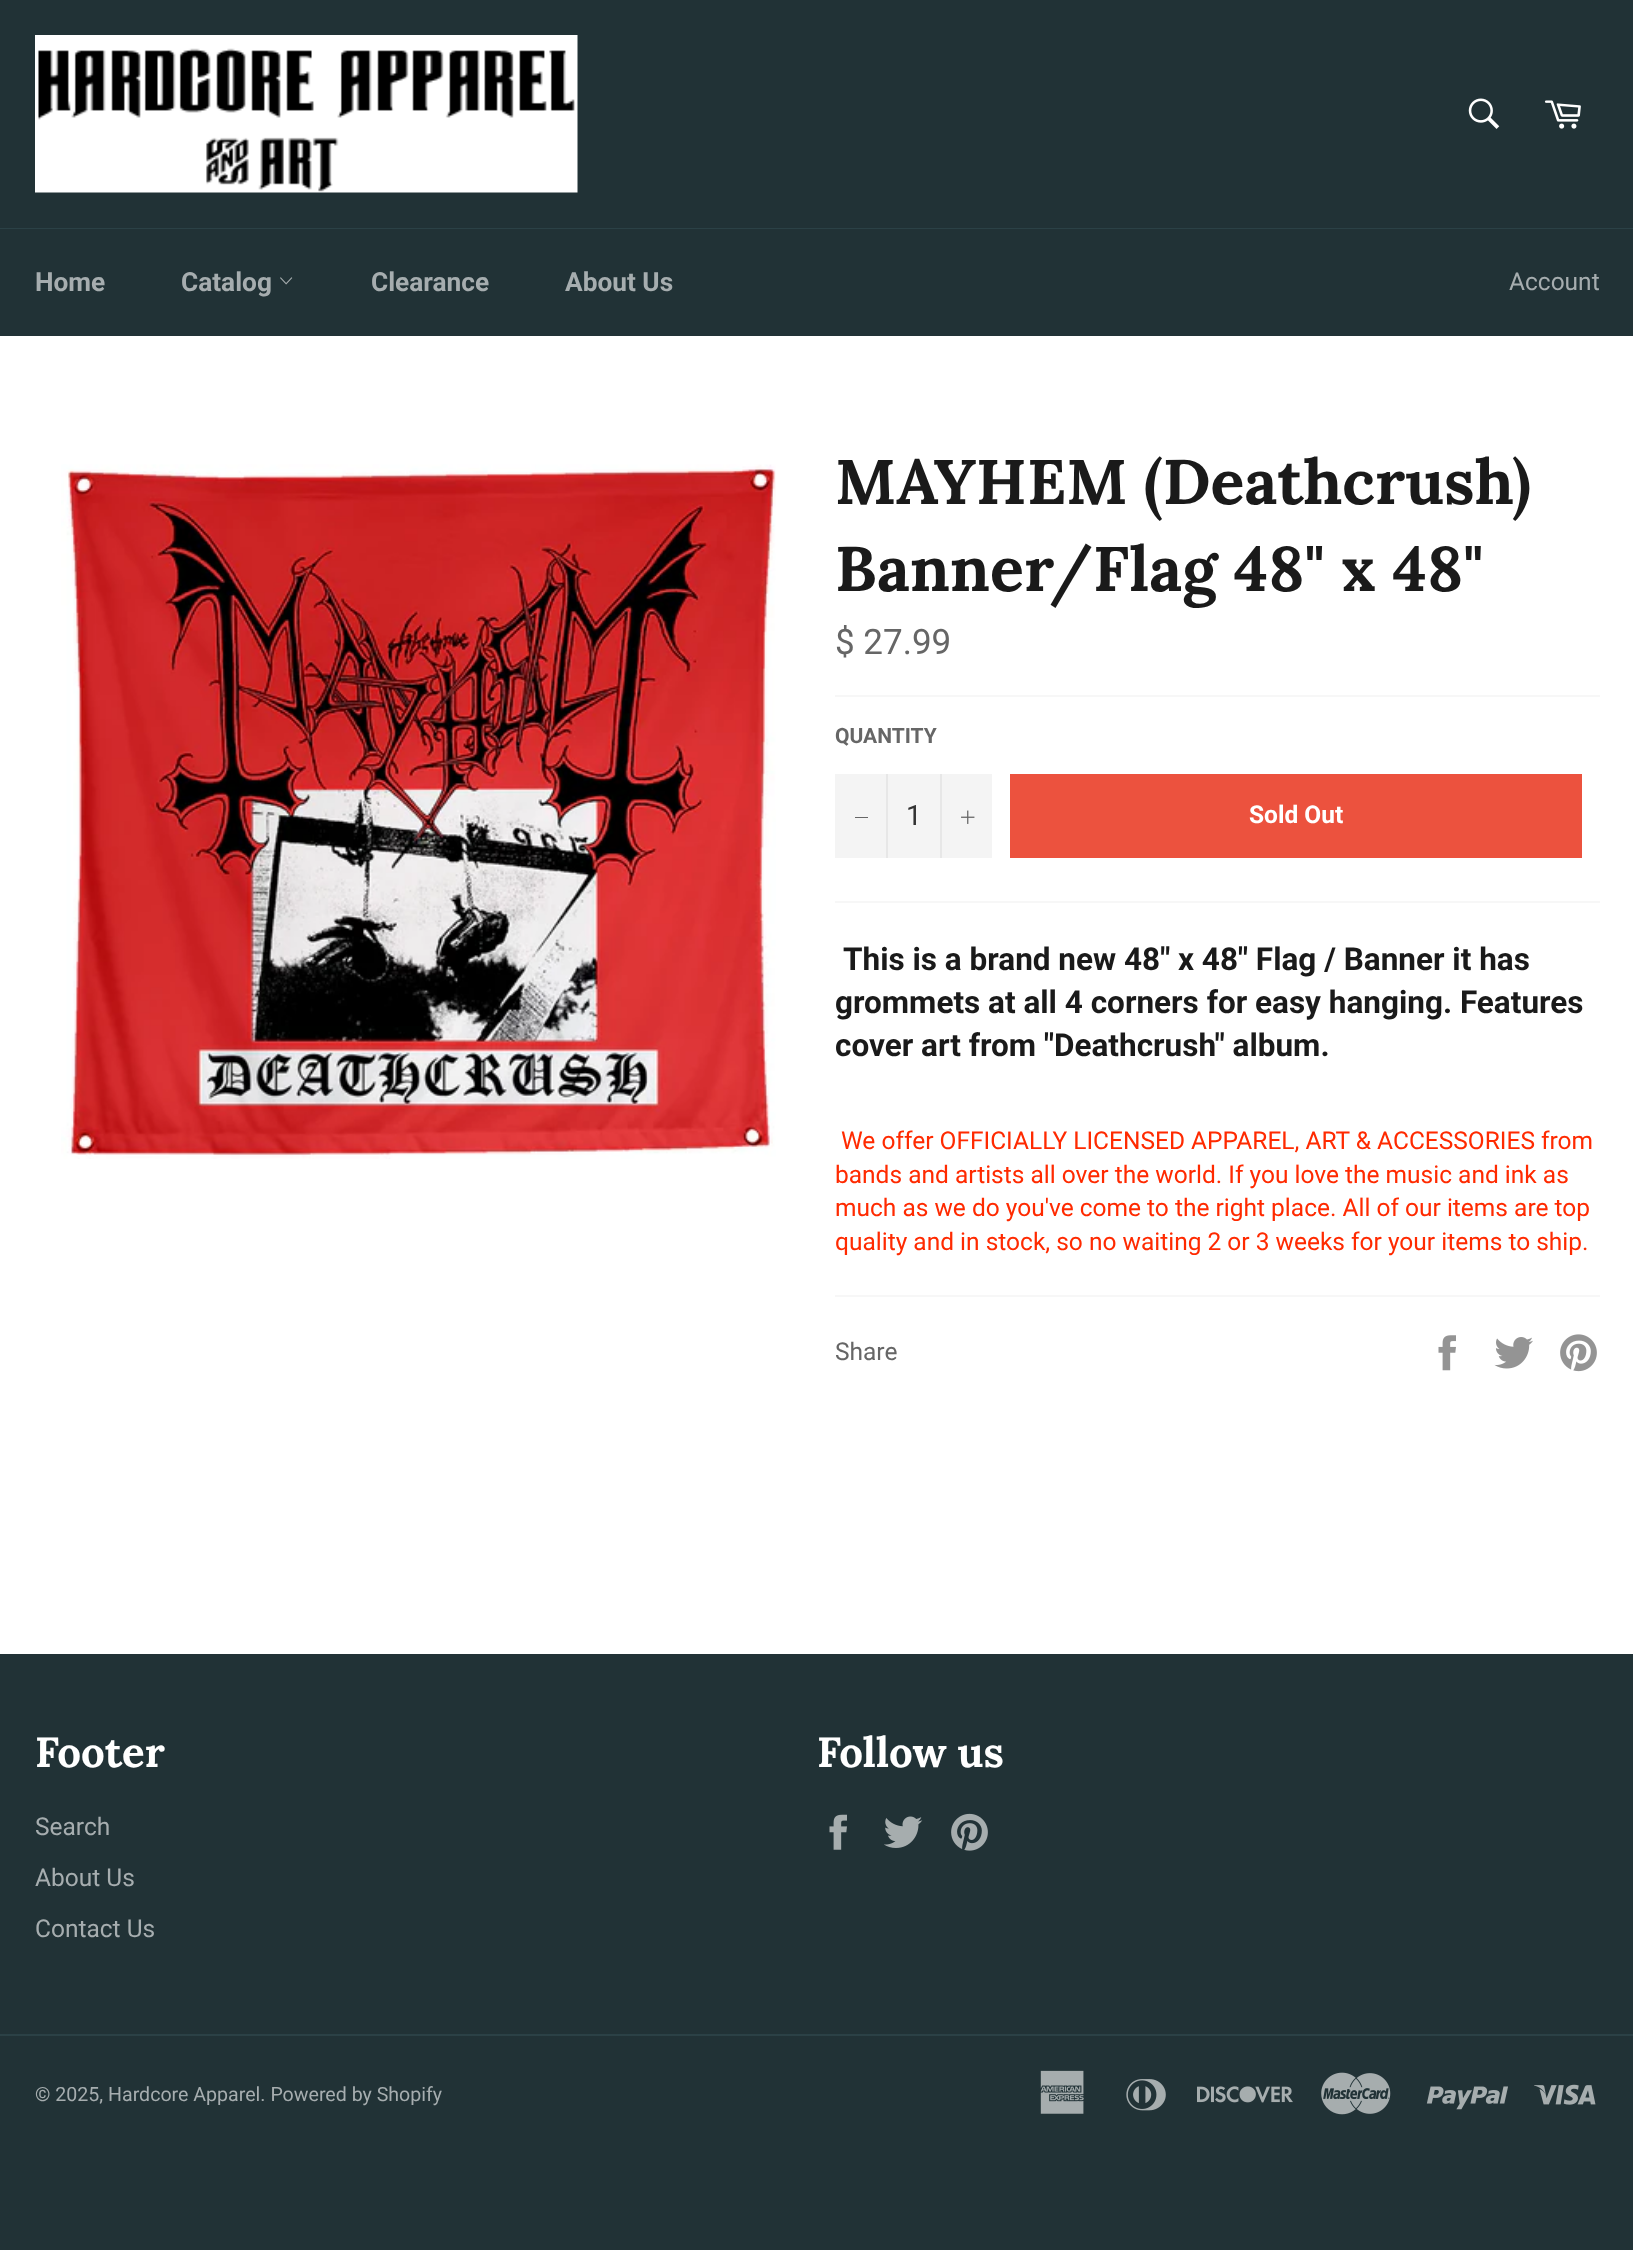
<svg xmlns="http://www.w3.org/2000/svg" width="1633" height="2250">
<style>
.a{font:bold 26.25px Roboto;fill:#a6adaf}
.b{font:24.5px Roboto;fill:#a6adaf}
.c{font:bold 63px Lora;fill:#1a1a1a}
.d{font:35px Roboto;fill:#666}
.e{font:bold 21px Roboto;fill:#666}
.f{font:28px Roboto;fill:#333}
.g{font:bold 24.5px Roboto;fill:#fff}
.h{font:bold 31.5px Roboto;fill:#1a1a1a}
.i{font:24.5px Roboto;fill:#ff2a00}
.j{font:24.5px Roboto;fill:#666}
.k{font:bold 42px Lora;fill:#fff}
.l{font:19.6px Roboto;fill:#a6adaf}
</style>
<rect width="100%" height="100%" fill="#213236"/>
<image href="1.png" x="35" y="35" width="543" height="158"/>
<image href="2.png" x="1468" y="98" width="32" height="31"/>
<image href="3.png" x="1544" y="100" width="37" height="29"/>
<path fill="#2b4146" d="M0 228h1633v1H0z"/>
<image href="4.png" x="280" y="277" width="13" height="8"/>
<path fill="#fff" d="M0 336h1633v1318H0z"/>
<image href="5.png" x="61" y="464" width="715" height="695"/>
<path fill="#f7f7f7" d="M835 695h765v2H835z"/>
<path fill="#f4f4f4" d="M835 774h157v84H835z"/>
<path fill="#e7e7e7" d="M886 774h2v84H886z"/>
<path fill="#666" d="M855 817h13v1H855z"/>
<path fill="#e7e7e7" d="M940 774h2v84H940z"/>
<image href="6.png" x="961" y="810" width="14" height="14"/>
<path fill="#ec523e" d="M1010 774h572v84H1010z"/>
<path fill="#f7f7f7" d="M835 901h765v2H835z"/>
<path fill="#f7f7f7" d="M835 1295h765v2H835z"/>
<image href="7.png" x="1438" y="1335" width="18" height="36"/>
<image href="8.png" x="1494" y="1337" width="39" height="32"/>
<image href="9.png" x="1560" y="1334" width="37" height="38"/>
<image href="10.png" x="829" y="1814" width="18" height="36"/>
<image href="11.png" x="884" y="1816" width="39" height="32"/>
<image href="12.png" x="951" y="1813" width="37" height="38"/>
<path fill="#2b4146" d="M0 2034h1633v2H0z"/>
<image href="13.png" x="1040" y="2070" width="44" height="44"/>
<image href="14.png" x="1126" y="2079" width="40" height="32"/>
<image href="15.png" x="1197" y="2086" width="96" height="17"/>
<image href="16.png" x="1321" y="2072" width="70" height="43"/>
<image href="17.png" x="1426" y="2086" width="82" height="24"/>
<image href="18.png" x="1534" y="2084" width="62" height="21"/>
<text class="a" x="35" y="291">Home</text>
<text class="a" x="181" y="291">Catalog</text>
<text class="a" x="371" y="291">Clearance</text>
<text class="a" x="565" y="291">About Us</text>
<text class="b" x="1509" y="290">Account</text>
<text class="c" x="835" y="504">MAYHEM (Deathcrush)</text>
<text class="c" x="835" y="591">Banner/Flag 48" x 48"</text>
<text class="d" x="835" y="654">$ 27.99</text>
<text class="e" x="835" y="743">QUANTITY</text>
<text class="f" x="906" y="825">1</text>
<text class="g" x="1249" y="823">Sold Out</text>
<text class="h" x="843" y="970">This is a brand new 48" x 48" Flag / Banner it has</text>
<text class="h" x="835" y="1013">grommets at all 4 corners for easy hanging. Features</text>
<text class="h" x="835" y="1056">cover art from "Deathcrush" album.</text>
<text class="i" x="841" y="1149">We offer OFFICIALLY LICENSED APPAREL, ART &amp; ACCESSORIES from</text>
<text class="i" x="835" y="1183">bands and artists all over the world. If you love the music and ink as</text>
<text class="i" x="835" y="1216">much as we do you've come to the right place. All of our items are top</text>
<text class="i" x="835" y="1250">quality and in stock, so no waiting 2 or 3 weeks for your items to ship.</text>
<text class="j" x="835" y="1360">Share</text>
<text class="k" x="35" y="1767">Footer</text>
<text class="b" x="35" y="1835">Search</text>
<text class="b" x="35" y="1886">About Us</text>
<text class="b" x="35" y="1937">Contact Us</text>
<text class="k" x="817" y="1767">Follow us</text>
<text class="l" x="35" y="2101">© 2025, Hardcore Apparel. Powered by Shopify</text>
</svg>
